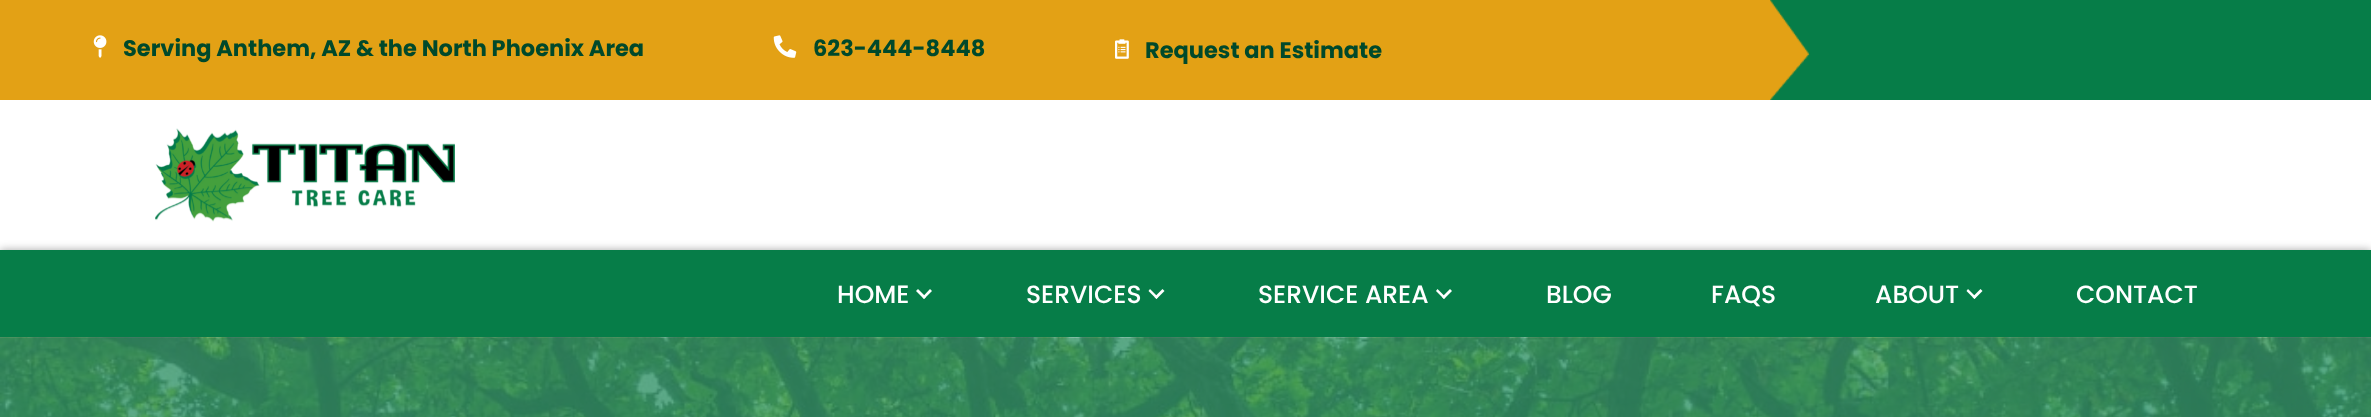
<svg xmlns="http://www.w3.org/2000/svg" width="2371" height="417">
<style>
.a{font:bold 22.5px Poppins;fill:#00492b}
.b{font:500 25px Poppins;fill:#fff}
</style>
<rect width="100%" height="100%" fill="#e3a115"/>
<image href="1.png" x="93" y="35" width="14" height="23"/>
<image href="2.png" x="773" y="35" width="24" height="23"/>
<image href="3.png" x="1115" y="39" width="14" height="20"/>
<image href="4.png" x="1770" y="0" width="95" height="100"/>
<path fill="#067d48" d="M1865 0h506v100H1865z"/>
<path fill="#fff" d="M0 100h2371v150H0z"/>
<image href="5.png" x="155" y="128" width="300" height="94"/>
<path fill="#00000059" filter="blur(4.5px)" d="M0 250h2371v88H0z"/>
<path fill="#067d48" d="M0 250h2371v88H0z"/>
<path fill="#fff" d="M930 289l2 2l-8 8l-1.5-2z"/>
<path fill="#fff" d="M918 289l8 8l-2 2l-8-8z"/>
<path fill="#fff" d="M1162.5 289l2 2l-8 8l-2-2z"/>
<path fill="#fff" d="M1150 289l8 8l-1.5 2l-8-8z"/>
<path fill="#fff" d="M1450 289l2 2l-8 8l-2-2z"/>
<path fill="#fff" d="M1437.5 289l8 8l-1.5 2l-8-8z"/>
<path fill="#fff" d="M1980.5 289l2 2l-8 8l-2-2z"/>
<path fill="#fff" d="M1968 289l8 8l-1.5 2l-8-8z"/>
<image href="6.png" x="0" y="337" width="2371" height="80"/>
<text class="a" x="123" y="56">Serving Anthem, AZ &amp; the North Phoenix Area</text>
<text class="a" x="813" y="56">623-444-8448</text>
<text class="a" x="1145" y="58">Request an Estimate</text>
<text class="b" x="837" y="303">HOME</text>
<text class="b" x="1026" y="303">SERVICES</text>
<text class="b" x="1258" y="303">SERVICE AREA</text>
<text class="b" x="1546" y="303">BLOG</text>
<text class="b" x="1711" y="303">FAQS</text>
<text class="b" x="1875" y="303">ABOUT</text>
<text class="b" x="2076" y="303">CONTACT</text>
</svg>
